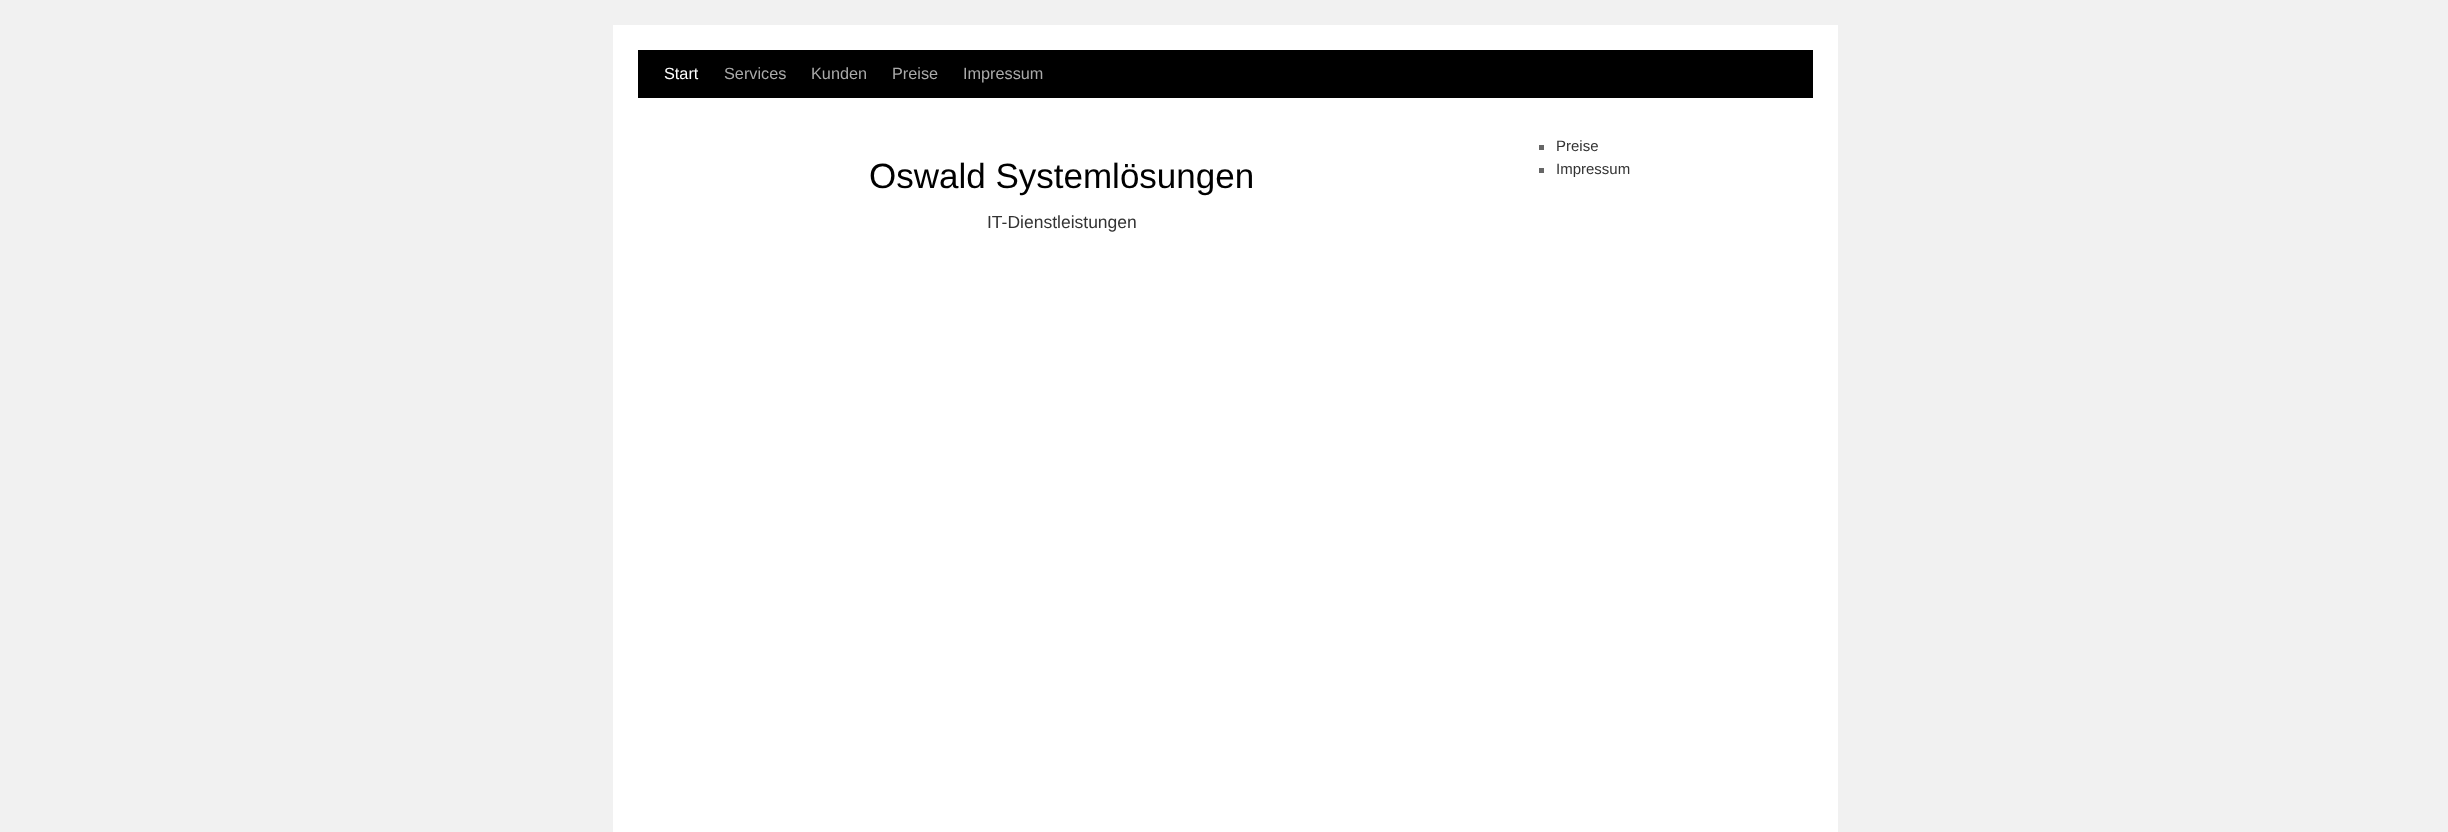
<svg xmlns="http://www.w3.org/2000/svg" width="2448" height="832">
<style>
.a{font:16.25px Liberation Sans;fill:#fff}
.b{font:16.25px Liberation Sans;fill:#aaa}
.c{font:35px Liberation Sans;fill:#000}
.d{font:17.5px Liberation Sans;fill:#333}
.e{font:15px Liberation Sans;fill:#333}
</style>
<rect width="100%" height="100%" fill="#f1f1f1"/>
<path fill="#fff" d="M613 25h1225v807H613z"/>
<path fill="#000" d="M638 50h1175v48H638z"/>
<path fill="#666" d="M1539 145h5v5H1539z"/>
<path fill="#666" d="M1539 168h5v5H1539z"/>
<text class="a" x="664" y="79">Start</text>
<text class="b" x="724" y="79">Services</text>
<text class="b" x="811" y="79">Kunden</text>
<text class="b" x="892" y="79">Preise</text>
<text class="b" x="963" y="79">Impressum</text>
<text class="c" x="869" y="188">Oswald Systemlösungen</text>
<text class="d" x="987" y="228">IT-Dienstleistungen</text>
<text class="e" x="1556" y="151">Preise</text>
<text class="e" x="1556" y="174">Impressum</text>
</svg>
